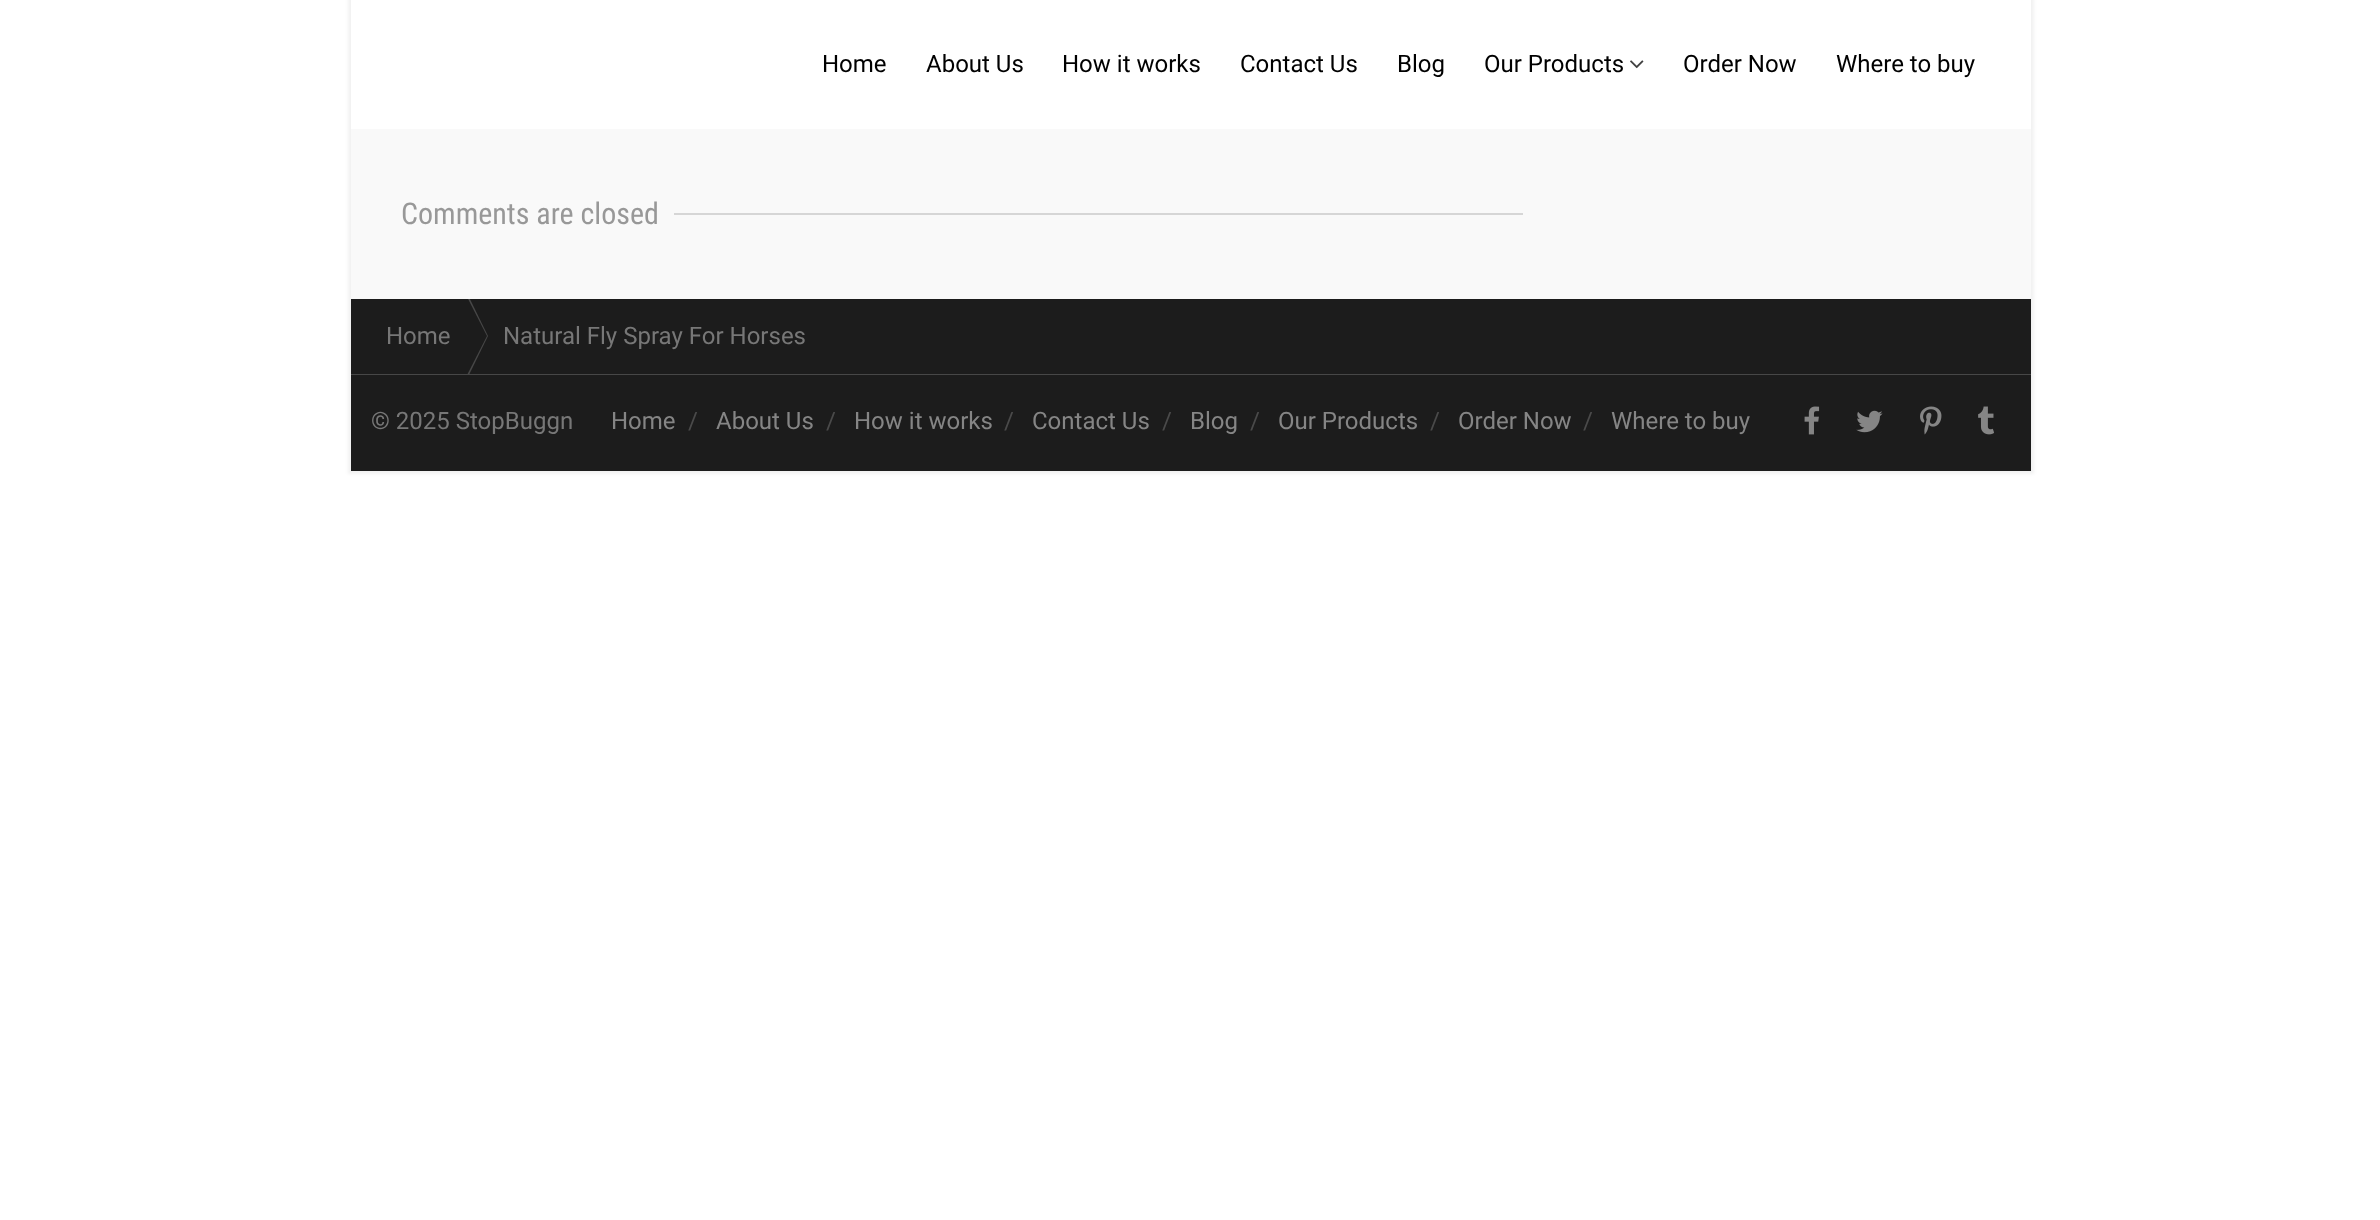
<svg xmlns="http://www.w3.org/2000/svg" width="2380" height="1220">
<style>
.a{font:24px Roboto;fill:#000}
.b{font:30px Roboto Condensed;fill:#989898}
.c{font:24px Roboto;fill:#777}
.d{font:24px Roboto;fill:#858585}
.e{font:24px Roboto;fill:#4a4a4a}
</style>
<defs>
<clipPath id="clip1"><path d="M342 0h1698v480h-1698zm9 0h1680v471h-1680z" clip-rule="evenodd"/></clipPath>
<clipPath id="clip2"><path d="M387 299h1608v75H387z"/></clipPath>
</defs>
<rect width="100%" height="100%" fill="#fff"/>
<g clip-path="url(#clip1)">
<path fill="#0000000d" filter="blur(1.5px)" d="M348 -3h1686v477H348z"/>
</g>
<image href="1.png" x="1630" y="60" width="14" height="9"/>
<path fill="#f9f9f9" d="M351 129h1680v170H351z"/>
<path fill="#d6d6d6" d="M674 213h849v2H674z"/>
<path fill="#1c1c1c" d="M351 299h1680v75H351z"/>
<path fill="#474747" d="M351 374h1680v1H351z"/>
<g clip-path="url(#clip2)">
<path fill="#474747" d="M466 381v-90l22 45z"/>
<path fill="#1c1c1c" d="M464 381v-90l23 45z"/>
</g>
<path fill="#1c1c1c" d="M351 375h1680v96H351z"/>
<image href="2.png" x="1804" y="406" width="16" height="29"/>
<image href="3.png" x="1856" y="410" width="27" height="23"/>
<image href="4.png" x="1920" y="406" width="22" height="29"/>
<image href="5.png" x="1978" y="406" width="16" height="29"/>
<text class="a" x="822" y="72">Home</text>
<text class="a" x="926" y="72">About Us</text>
<text class="a" x="1062" y="72">How it works</text>
<text class="a" x="1240" y="72">Contact Us</text>
<text class="a" x="1397" y="72">Blog</text>
<text class="a" x="1484" y="72">Our Products</text>
<text class="a" x="1683" y="72">Order Now</text>
<text class="a" x="1836" y="72">Where to buy</text>
<text class="b" x="401" y="224">Comments are closed</text>
<text class="c" x="386" y="344">Home</text>
<text class="c" x="503" y="344">Natural Fly Spray For Horses</text>
<text class="c" x="371" y="429">© 2025 StopBuggn</text>
<text class="d" x="611" y="429">Home</text>
<text class="e" x="688" y="429">/</text>
<text class="d" x="716" y="429">About Us</text>
<text class="e" x="826" y="429">/</text>
<text class="d" x="854" y="429">How it works</text>
<text class="e" x="1004" y="429">/</text>
<text class="d" x="1032" y="429">Contact Us</text>
<text class="e" x="1162" y="429">/</text>
<text class="d" x="1190" y="429">Blog</text>
<text class="e" x="1250" y="429">/</text>
<text class="d" x="1278" y="429">Our Products</text>
<text class="e" x="1430" y="429">/</text>
<text class="d" x="1458" y="429">Order Now</text>
<text class="e" x="1583" y="429">/</text>
<text class="d" x="1611" y="429">Where to buy</text>
</svg>
